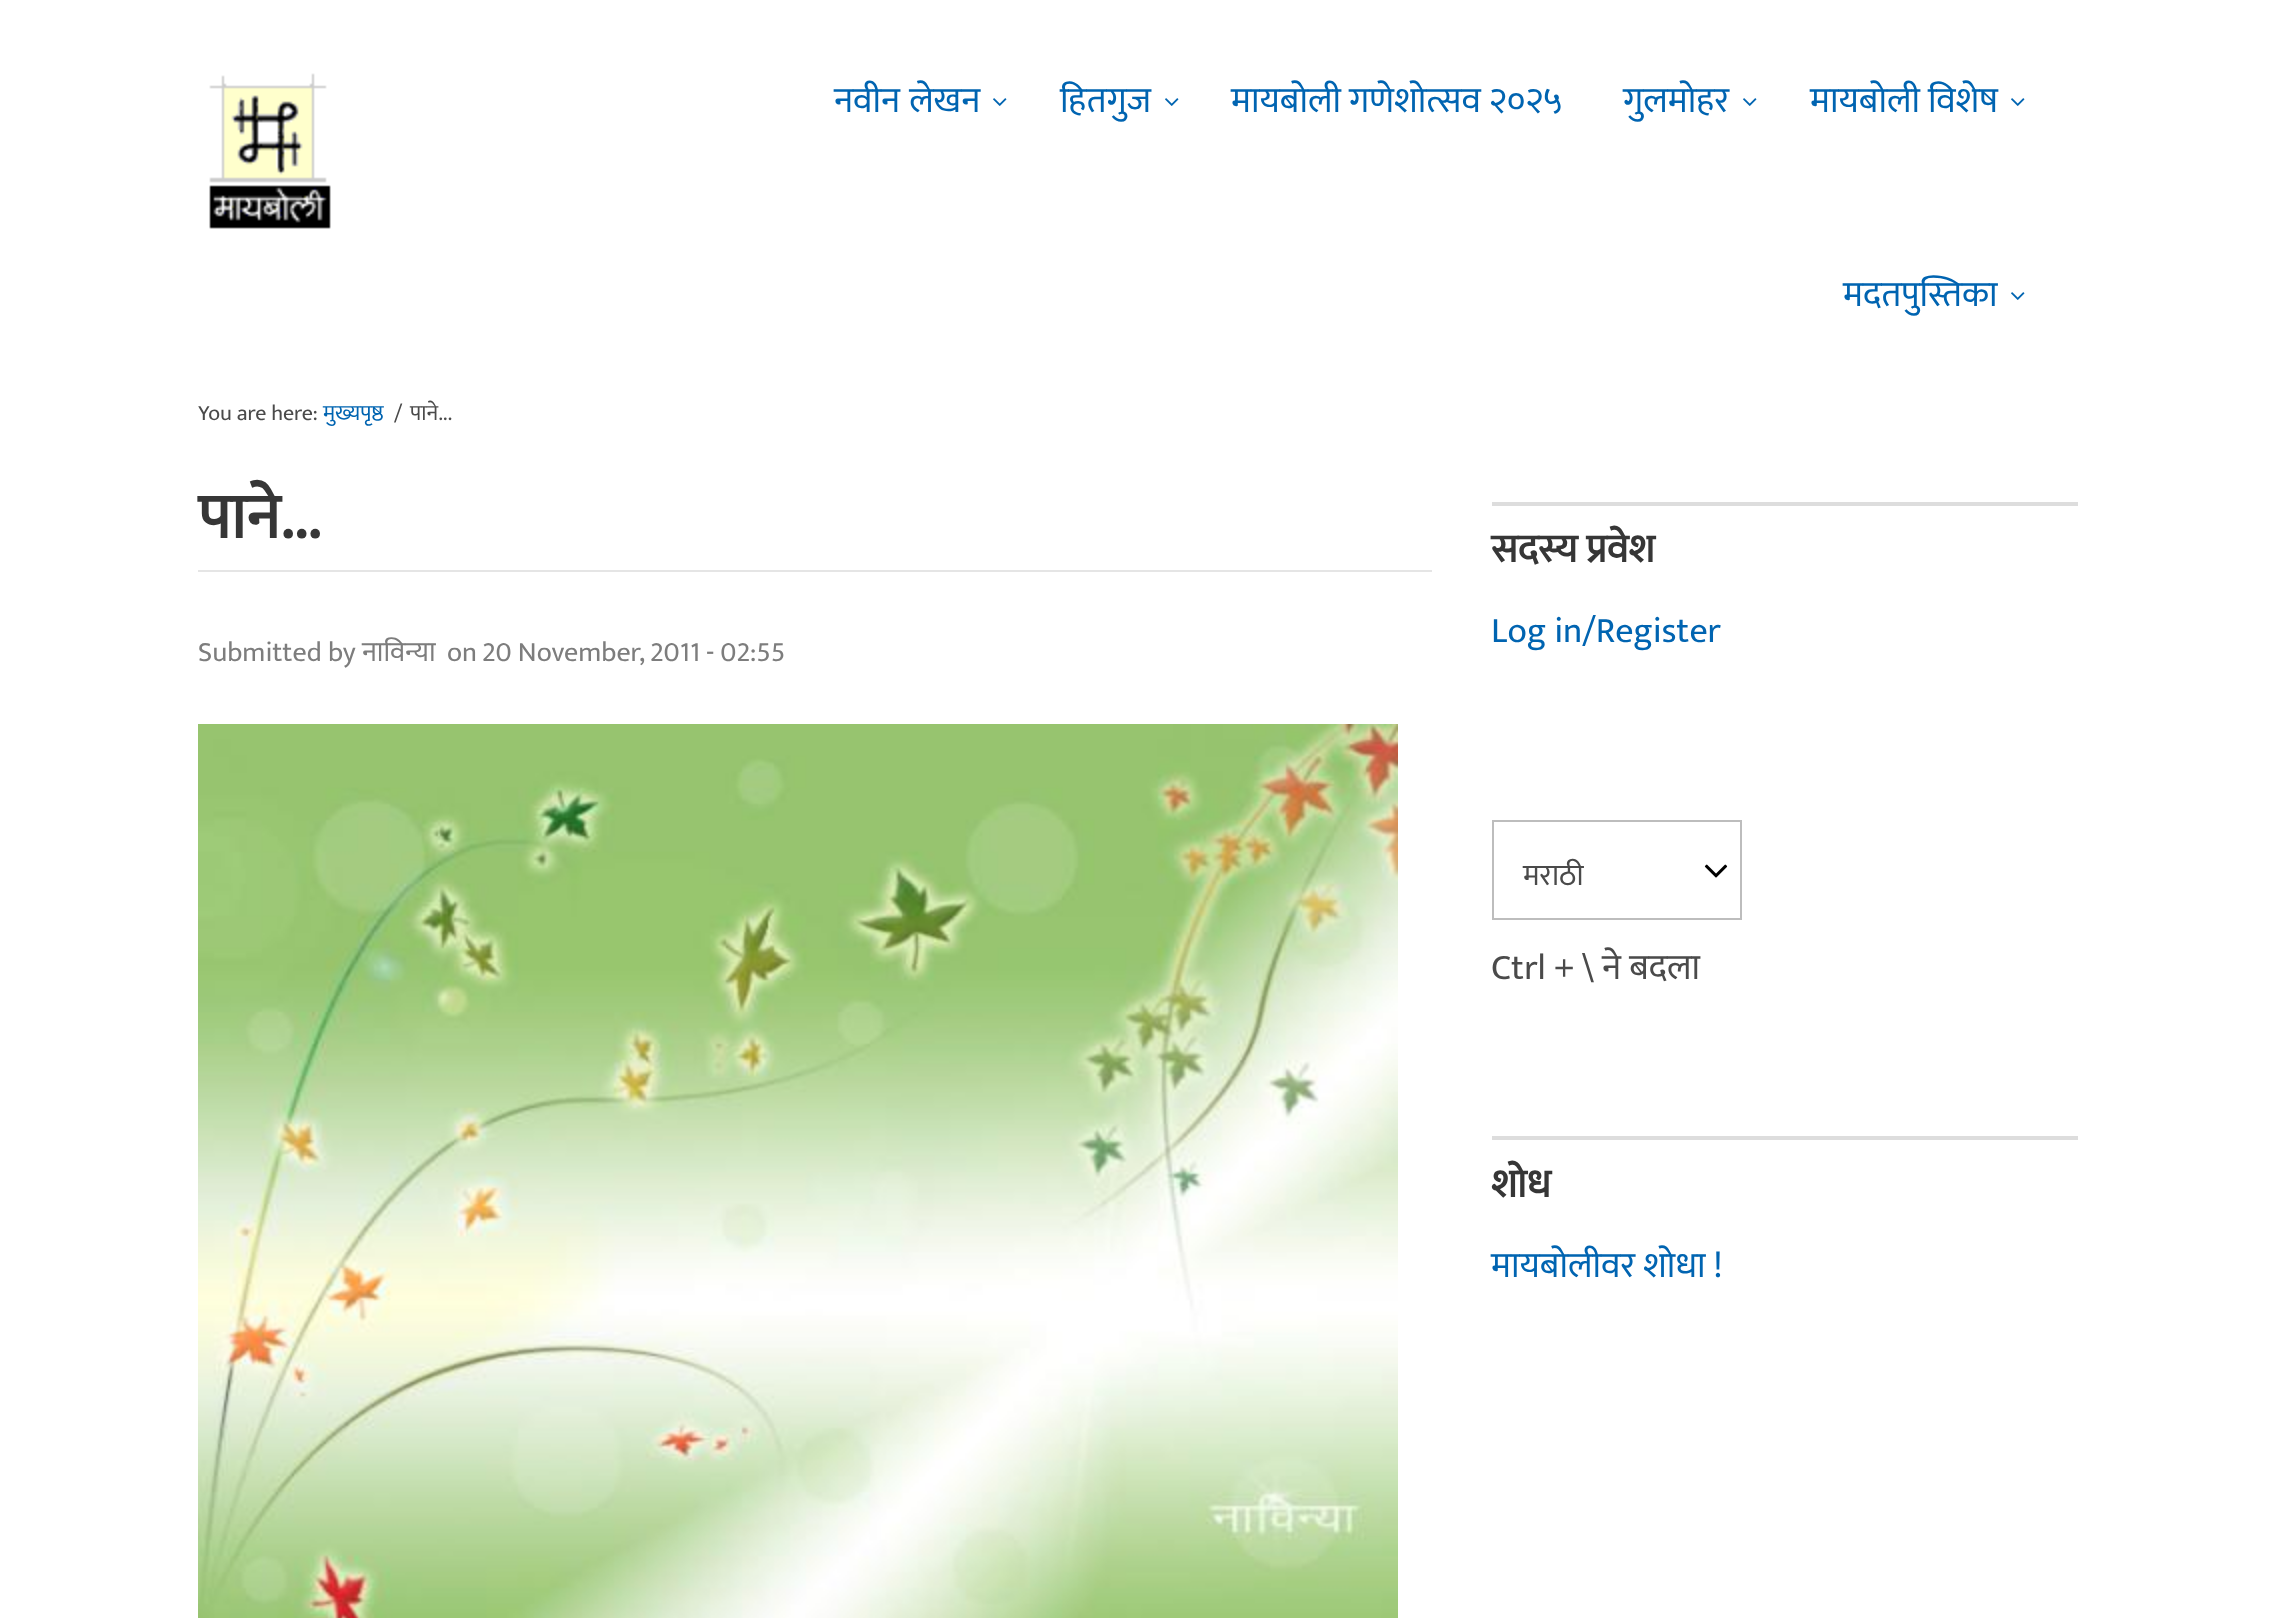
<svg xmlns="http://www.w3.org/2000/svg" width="2276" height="1618">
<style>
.a{font:36px Ek Mukta;fill:#0064b1}
.b{font:22px Ek Mukta;fill:#4a4a4a}
.c{font:22px Ek Mukta;fill:#0064b1}
.d{font:bold 64px Ek Mukta;fill:#363636}
.e{font:28px Ek Mukta;fill:#7d7d7d}
.f{font:bold 40px Ek Mukta;fill:#363636}
.g{font:30px Ek Mukta;fill:#4a4a4a}
.h{font:36px Ek Mukta;fill:#4a4a4a}
</style>
<rect width="100%" height="100%" fill="#fff"/>
<image href="1.png" x="209" y="73" width="122" height="156"/>
<image href="2.png" x="993" y="98" width="14" height="8"/>
<image href="2.png" x="1165" y="98" width="14" height="8"/>
<image href="2.png" x="1743" y="98" width="14" height="8"/>
<image href="2.png" x="2011" y="98" width="14" height="8"/>
<image href="2.png" x="2011" y="292" width="14" height="8"/>
<path fill="#e5e5e5" d="M198 570h1234v2H198z"/>
<image href="3.png" x="198" y="724" width="1200" height="894"/>
<path fill="#ddd" d="M1492 502h586v4H1492z"/>
<image href="4.png" x="1704" y="864" width="24" height="14"/>
<path fill="none" stroke="#bdbdbd" stroke-width="2" d="M1493 821h248v98H1493z"/>
<path fill="#ddd" d="M1492 1136h586v4H1492z"/>
<text class="a" x="834" y="112" word-spacing="1">नवीन लेखन</text>
<text class="a" x="1060" y="112">हितगुज</text>
<text class="a" x="1231" y="112">मायबोली गणेशोत्सव २०२५</text>
<text class="a" x="1623" y="112">गुलमोहर</text>
<text class="a" x="1810" y="112">मायबोली विशेष</text>
<text class="a" x="1843" y="306">मदतपुस्तिका</text>
<text class="b" x="198" y="420">You are here:</text>
<text class="c" x="323" y="420">मुख्यपृष्ठ</text>
<text class="b" x="394" y="420">/</text>
<text class="b" x="410" y="420">पाने...</text>
<text class="d" x="198" y="538">पाने...</text>
<text class="e" x="198" y="661">Submitted by नाविन्या</text>
<text class="e" x="447" y="661">on</text>
<text class="e" x="482" y="661">20 November, 2011 - 02:55</text>
<text class="f" x="1491" y="562">सदस्य प्रवेश</text>
<text class="a" x="1491" y="642">Log in/Register</text>
<text class="g" x="1523" y="885">मराठी</text>
<text class="h" x="1491" y="979">Ctrl + \ ने बदला</text>
<text class="f" x="1491" y="1197">शोध</text>
<text class="a" x="1491" y="1277">मायबोलीवर शोधा !</text>
</svg>
